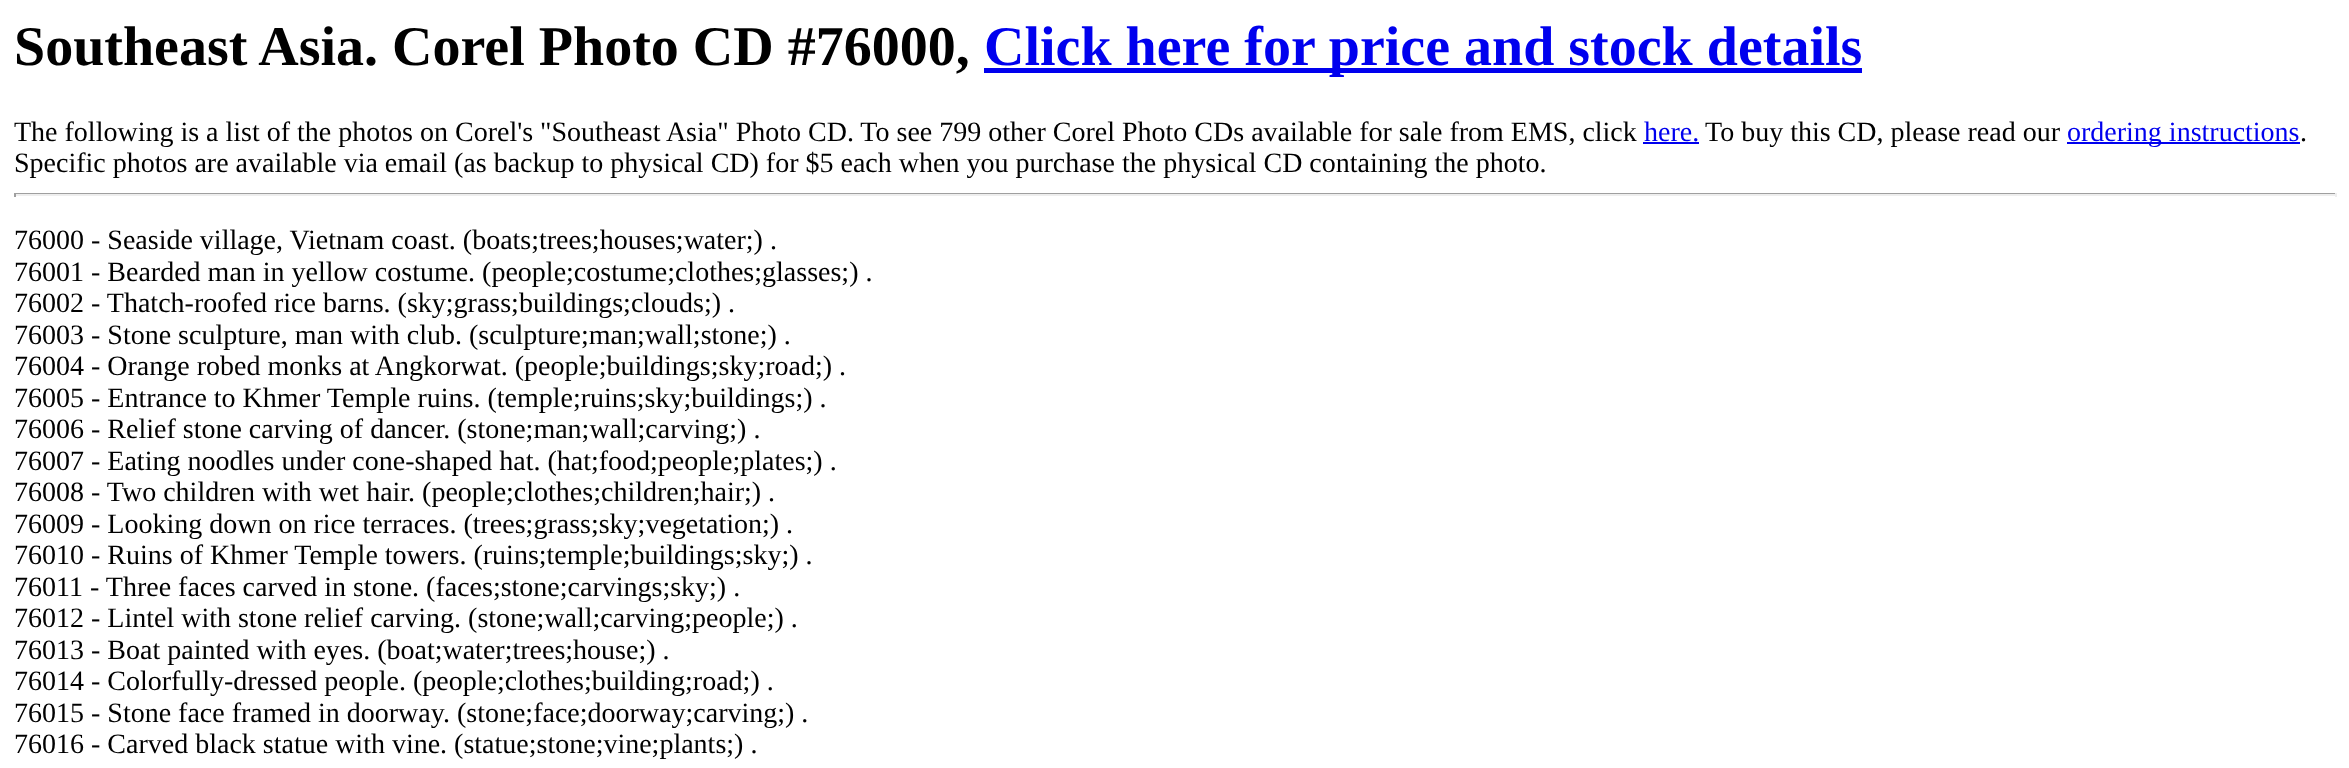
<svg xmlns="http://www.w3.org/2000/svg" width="2349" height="768">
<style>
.a{font:bold 56px Liberation Serif;fill:#000}
.b{font:bold 56px Liberation Serif;fill:#00e}
.c{font:28px Liberation Serif;fill:#000}
.d{font:28px Liberation Serif;fill:#00e}
</style>
<rect width="100%" height="100%" fill="#fff"/>
<path fill="#00e" d="M984 68h878v5H984z"/>
<path fill="#00e" d="M1643 142h56v2H1643z"/>
<path fill="#00e" d="M2067 142h233v2H2067z"/>
<path fill="#9f9f9f" d="M14 193h2322v1H14z"/>
<path fill="#eee" d="M2335 193h2v4H2335z"/>
<path fill="#eee" d="M14 194h2322v2H14z"/>
<path fill="#9f9f9f" d="M14 193h2v4H14z"/>
<text class="a" x="14" y="65">Southeast Asia. Corel Photo CD #76000,</text>
<text class="b" x="984" y="65">Click here for price and stock details</text>
<text class="c" x="14" y="141">The following is a list of the photos on Corel's "Southeast Asia" Photo CD. To see 799 other Corel Photo CDs available for sale from EMS, click</text>
<text class="d" x="1644" y="141">here.</text>
<text class="c" x="1705" y="141">To buy this CD, please read our</text>
<text class="d" x="2067" y="141">ordering instructions</text>
<text class="c" x="2300" y="141">.</text>
<text class="c" x="14" y="172">Specific photos are available via email (as backup to physical CD) for $5 each when you purchase the physical CD containing the photo.</text>
<text class="c" x="14" y="249">76000 - Seaside village, Vietnam coast. (boats;trees;houses;water;) .</text>
<text class="c" x="14" y="281">76001 - Bearded man in yellow costume. (people;costume;clothes;glasses;) .</text>
<text class="c" x="14" y="312">76002 - Thatch-roofed rice barns. (sky;grass;buildings;clouds;) .</text>
<text class="c" x="14" y="344">76003 - Stone sculpture, man with club. (sculpture;man;wall;stone;) .</text>
<text class="c" x="14" y="375">76004 - Orange robed monks at Angkorwat. (people;buildings;sky;road;) .</text>
<text class="c" x="14" y="407">76005 - Entrance to Khmer Temple ruins. (temple;ruins;sky;buildings;) .</text>
<text class="c" x="14" y="438">76006 - Relief stone carving of dancer. (stone;man;wall;carving;) .</text>
<text class="c" x="14" y="470">76007 - Eating noodles under cone-shaped hat. (hat;food;people;plates;) .</text>
<text class="c" x="14" y="501">76008 - Two children with wet hair. (people;clothes;children;hair;) .</text>
<text class="c" x="14" y="533">76009 - Looking down on rice terraces. (trees;grass;sky;vegetation;) .</text>
<text class="c" x="14" y="564">76010 - Ruins of Khmer Temple towers. (ruins;temple;buildings;sky;) .</text>
<text class="c" x="14" y="596">76011 - Three faces carved in stone. (faces;stone;carvings;sky;) .</text>
<text class="c" x="14" y="627">76012 - Lintel with stone relief carving. (stone;wall;carving;people;) .</text>
<text class="c" x="14" y="659">76013 - Boat painted with eyes. (boat;water;trees;house;) .</text>
<text class="c" x="14" y="690">76014 - Colorfully-dressed people. (people;clothes;building;road;) .</text>
<text class="c" x="14" y="722">76015 - Stone face framed in doorway. (stone;face;doorway;carving;) .</text>
<text class="c" x="14" y="753">76016 - Carved black statue with vine. (statue;stone;vine;plants;) .</text>
</svg>
